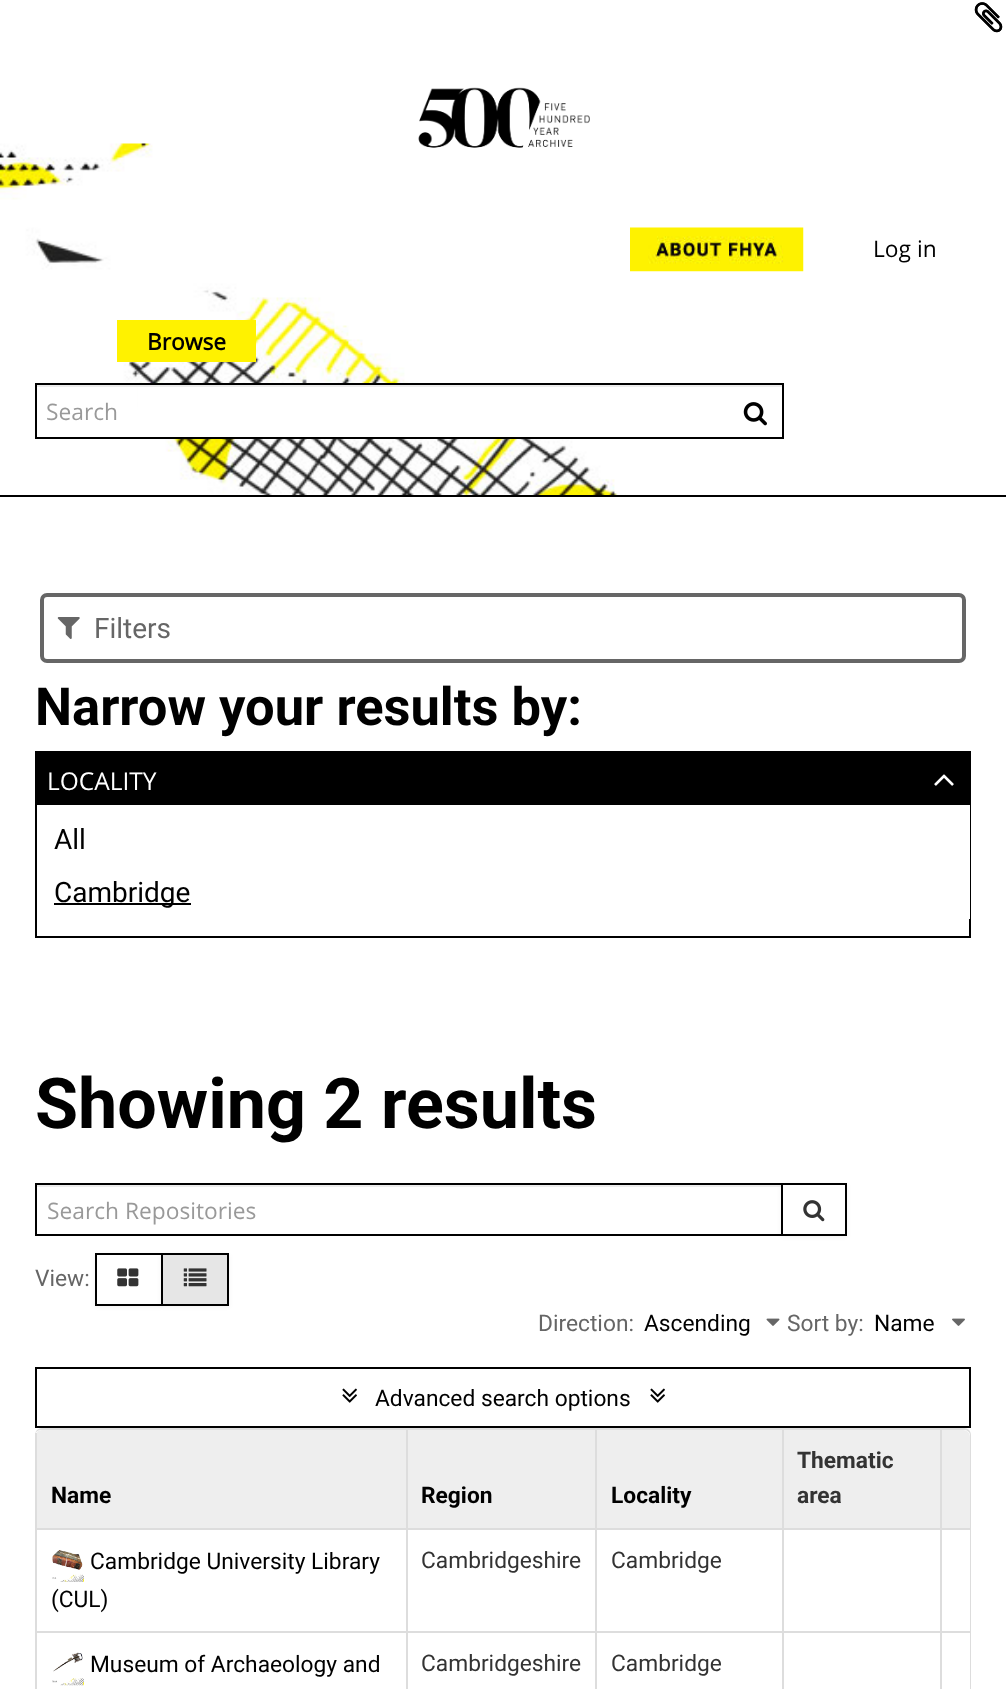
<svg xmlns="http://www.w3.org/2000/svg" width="1006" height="1689">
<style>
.a{font:22.75px Open Sans;fill:#000}
.b{font:bold 22.75px Open Sans;fill:#000}
.c{font:22.75px Open Sans;fill:#999}
.d{font:28px Roboto;fill:#666}
.e{font:bold 52.5px Roboto;fill:#000}
.f{font:24.5px Open Sans;fill:#fff}
.g{font:28px Roboto;fill:#000}
.h{font:bold 70px Roboto;fill:#000}
.i{font:22.75px Roboto;fill:#666}
.j{font:22.75px Roboto;fill:#000}
.k{font:bold 22.75px Roboto;fill:#000}
.l{font:bold 22.75px Roboto;fill:#333}
.m{font:22.75px Roboto;fill:#333}
</style>
<rect width="100%" height="100%" fill="#fff"/>
<image href="1.png" x="0" y="143" width="626" height="352"/>
<image href="2.png" x="418" y="87" width="172" height="61"/>
<image href="3.png" x="630" y="227" width="174" height="45"/>
<path fill="#fff200" d="M117 320h139v42H117z"/>
<path fill="#fff" d="M138 387h393v50H138z"/>
<path fill="#ececec" d="M37 385h745v2H37z"/>
<path fill="none" stroke="#000" stroke-width="2" d="M36 384h747v54H36z"/>
<image href="4.png" x="743" y="402" width="24" height="24"/>
<path fill="#000" d="M0 495h1006v2H0z"/>
<rect fill="none" stroke="#666" stroke-width="4" x="42" y="595" width="922" height="66" rx="5"/>
<image href="5.png" x="57" y="617" width="23" height="22"/>
<path fill="none" stroke="#000" stroke-width="2" d="M36 752h934v185H36z"/>
<path fill="#000" d="M37 753h932v52H37z"/>
<image href="6.png" x="934" y="774" width="20" height="12"/>
<path fill="#fff" d="M969 805h1v114H969z"/>
<path fill="#000" d="M54 903h137v2H54z"/>
<path fill="#ececec" d="M37 1185h745v2H37z"/>
<path fill="none" stroke="#000" stroke-width="2" d="M36 1184h747v51H36z"/>
<path fill="#0000000d" filter="blur(2px)" d="M781 1185h66v52H781z"/>
<path fill="#fff" stroke="#000" stroke-width="2" d="M782 1184h64v51H782z"/>
<image href="7.png" x="803" y="1200" width="22" height="22"/>
<path fill="#0000000d" filter="blur(2px)" d="M95 1255h68v52H95z"/>
<path fill="#fff" stroke="#000" stroke-width="2" d="M96 1254h66v51H96z"/>
<image href="8.png" x="117" y="1268" width="22" height="19"/>
<path fill="#0000000d" filter="blur(2px)" d="M161 1255h68v52H161z"/>
<path fill="#e6e6e6" stroke="#000" stroke-width="2" d="M162 1254h66v51H162z"/>
<image href="9.png" x="183" y="1268" width="24" height="19"/>
<image href="10.png" x="766" y="1318" width="14" height="8"/>
<image href="11.png" x="952" y="1318" width="13" height="8"/>
<path fill="none" stroke="#000" stroke-width="2" d="M36 1368h934v59H36z"/>
<image href="12.png" x="342" y="1388" width="15" height="15"/>
<image href="12.png" x="650" y="1388" width="15" height="15"/>
<path fill="#ddd" fill-rule="evenodd" d="M42 1428h922c4 0 7 3 7 7v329c0 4-3 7-7 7h-922c-4 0-7-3-7-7v-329c0-4 3-7 7-7zm0 2h922c3 0 6 2 6 5v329c0 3-3 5-6 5h-922c-4 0-7-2-7-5v-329c0-3 3-5 7-5z"/>
<path fill="#eee" d="M42 1430h364v98h-371v-91c0-4 3-7 7-7z"/>
<path fill="#ddd" d="M35 1433h2v95H35z"/>
<path fill="#eee" d="M408 1430h187v98H408z"/>
<path fill="#ddd" d="M406 1430h2v98H406z"/>
<path fill="#eee" d="M597 1430h185v98H597z"/>
<path fill="#ddd" d="M595 1430h2v98H595z"/>
<path fill="#eee" d="M784 1430h156v98H784z"/>
<path fill="#ddd" d="M782 1430h2v98H782z"/>
<path fill="#eee" d="M940 1430h23c4 0 7 3 7 7v91h-30z"/>
<path fill="#ddd" d="M940 1430h2v98H940z"/>
<path fill="#ddd" d="M35 1528h935v2H35z"/>
<path fill="#ddd" d="M35 1528h2v103H35z"/>
<image href="13.png" x="52" y="1550" width="32" height="32"/>
<path fill="#ddd" d="M406 1528h2v103H406z"/>
<path fill="#ddd" d="M595 1528h2v103H595z"/>
<path fill="#ddd" d="M782 1528h2v103H782z"/>
<path fill="#ddd" d="M940 1528h2v103H940z"/>
<image href="14.png" x="974" y="2" width="29" height="31"/>
<path fill="#ddd" d="M35 1631h935v2H35z"/>
<path fill="#ddd" d="M35 1631h2v58H35z"/>
<image href="15.png" x="52" y="1652" width="32" height="34"/>
<path fill="#ddd" d="M406 1631h2v58H406z"/>
<path fill="#ddd" d="M595 1631h2v58H595z"/>
<path fill="#ddd" d="M782 1631h2v58H782z"/>
<path fill="#ddd" d="M940 1631h2v58H940z"/>
<image href="16.png" x="974" y="2" width="29" height="31"/>
<text class="a" x="873" y="257">Log in</text>
<text class="b" x="147" y="350">Browse</text>
<text class="c" x="46" y="420">Search</text>
<text class="d" x="94" y="638">Filters</text>
<text class="e" x="35" y="725">Narrow your results by:</text>
<text class="f" x="47" y="790">LOCALITY</text>
<text class="g" x="54" y="849">All</text>
<text class="g" x="54" y="902">Cambridge</text>
<text class="h" x="35" y="1128">Showing 2 results</text>
<text class="c" x="47" y="1219">Search Repositories</text>
<text class="i" x="35" y="1286">View:</text>
<text class="i" x="538" y="1331">Direction:</text>
<text class="j" x="644" y="1331">Ascending</text>
<text class="i" x="787" y="1331">Sort by:</text>
<text class="j" x="874" y="1331">Name</text>
<text class="j" x="375" y="1406">Advanced search options</text>
<text class="k" x="51" y="1503">Name</text>
<text class="k" x="421" y="1503">Region</text>
<text class="k" x="611" y="1503">Locality</text>
<text class="l" x="797" y="1468">Thematic</text>
<text class="l" x="797" y="1503">area</text>
<text class="j" x="90" y="1569">Cambridge University Library</text>
<text class="j" x="51" y="1607">(CUL)</text>
<text class="m" x="421" y="1568">Cambridgeshire</text>
<text class="m" x="611" y="1568">Cambridge</text>
<text class="j" x="90" y="1672">Museum of Archaeology and</text>
<text class="m" x="421" y="1671">Cambridgeshire</text>
<text class="m" x="611" y="1671">Cambridge</text>
</svg>
